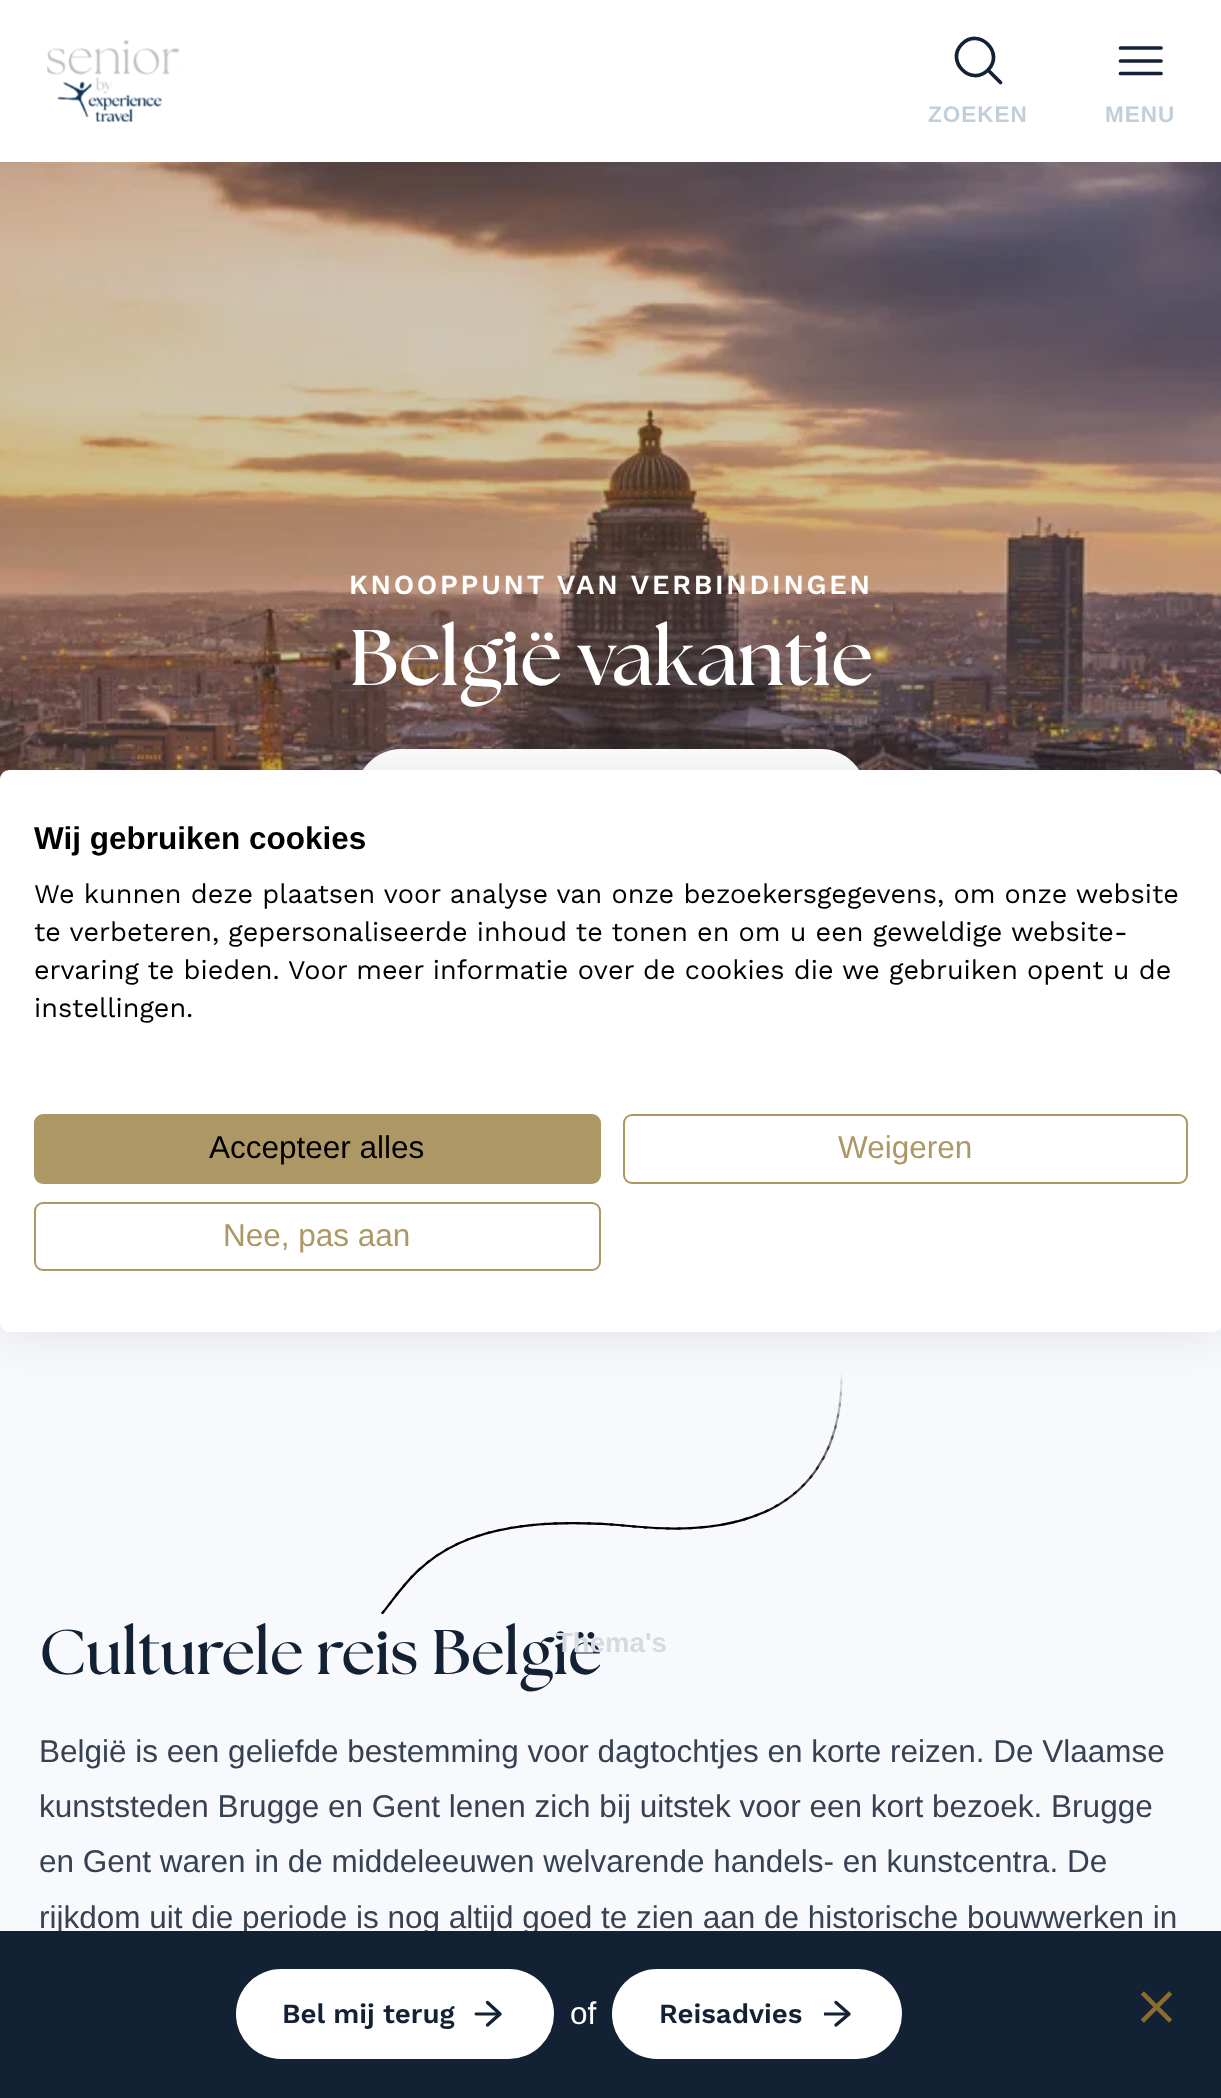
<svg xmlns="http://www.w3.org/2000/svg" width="1221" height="2098">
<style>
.a{font:bold 22.5px Liberation Sans;letter-spacing:1px;fill:#c2ced9}
.b{font:600 27.6px Work Sans;letter-spacing:2.75px;fill:#fff}
.c{font:bold 78.75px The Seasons;fill:#fff}
.d{font:bold 63px The Seasons;fill:#132134}
.e{font:31.5px Liberation Sans;fill:#374151}
.f{font:bold 27.6px Liberation Sans;fill:#d7d9e0}
.g{font:600 27.6px Work Sans;fill:#132134}
.h{font:31.5px Liberation Sans;fill:#fff}
.i{font:bold 31.5px Liberation Sans;fill:#000}
.j{font:27px Work Sans;fill:#000}
.k{font:31.5px Liberation Sans;fill:#000}
.l{font:31.5px Liberation Sans;fill:#ad9865}
</style>
<defs>
<linearGradient id="g1" gradientUnits="userSpaceOnUse" x1="612" y1="1370" x2="612" y2="1525"><stop offset="0" stop-color="#f8f9fd"/><stop offset="1" stop-color="#000"/></linearGradient>
<linearGradient id="g2" gradientUnits="userSpaceOnUse" x1="612" y1="1370" x2="612" y2="1525"><stop offset="0" stop-color="#000" stop-opacity="0"/><stop offset="1" stop-color="#000"/></linearGradient>
<clipPath id="clip1"><path d="M824 2000h36v27H824z"/></clipPath>
</defs>
<rect width="100%" height="100%" fill="#fff"/>
<image href="1.png" x="47" y="40" width="133" height="82"/>
<path fill="none" stroke="#132134" stroke-width="3.7" stroke-linecap="round" stroke-linejoin="round" d="M1000.5 82.5l-12.5-12.5m0 0c17-17-9-43-26-26c-17 17 9 43 26 26"/>
<path fill="none" stroke="#132134" stroke-width="3.7" stroke-linecap="round" stroke-linejoin="round" d="M1120.5 48h40.5m-40.5 13h40.5m-40.5 12.5h40.5"/>
<image href="2.png" x="0" y="162" width="1221" height="617"/>
<rect fill="#fff" x="356" y="749" width="510" height="90" rx="45"/>
<path fill="#f8f9fd" d="M0 1323h1221v608H0z"/>
<path fill="none" stroke="url(#g1)" stroke-width="2.2" stroke-linecap="round" stroke-linejoin="round" stroke-dasharray="2.25 9" d="M841.5 1370c0 32 4.5 177.5-207 156.5c-188-19-220 46.5-252 86.5"/>
<path fill="none" stroke="url(#g2)" stroke-width="2.2" stroke-linecap="round" stroke-linejoin="round" d="M841.5 1370c0 32 4.5 177.5-207 156.5c-188-19-220 46.5-252 86.5"/>
<rect fill="#0000001a" filter="blur(27px)" y="770" width="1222" height="562" rx="9"/>
<rect fill="#fff" y="770" width="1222" height="562" rx="9"/>
<rect fill="#ad9865" stroke="#ad9865" stroke-width="2" x="35" y="1115" width="565" height="68" rx="8"/>
<rect fill="none" stroke="#ad9865" stroke-width="2" x="624" y="1115" width="563" height="68" rx="8"/>
<rect fill="none" stroke="#ad9865" stroke-width="2" x="35" y="1203" width="565" height="67" rx="8"/>
<text class="a" x="928" y="122">ZOEKEN</text>
<text class="a" x="1105" y="122">MENU</text>
<text class="b" x="349" y="594">KNOOPPUNT VAN VERBINDINGEN</text>
<text class="c" x="349" y="685">België vakantie</text>
<text class="d" x="39" y="1674">Culturele reis België</text>
<text class="e" x="39" y="1762">België is een geliefde bestemming voor dagtochtjes en korte reizen. De Vlaamse</text>
<text class="e" x="39" y="1817">kunststeden Brugge en Gent lenen zich bij uitstek voor een kort bezoek. Brugge</text>
<text class="e" x="39" y="1872">en Gent waren in de middeleeuwen welvarende handels- en kunstcentra. De</text>
<text class="e" x="39" y="1928">rijkdom uit die periode is nog altijd goed te zien aan de historische bouwwerken in</text>
<text class="f" x="556" y="1652">Thema's</text>
<path fill="#132134" d="M0 1931h1221v167H0z"/>
<rect fill="#fff" x="236" y="1969" width="318" height="90" rx="45"/>
<text class="g" x="282" y="2023">Bel mij terug</text>
<path fill="none" stroke="#132134" stroke-width="3.4" stroke-linecap="round" stroke-linejoin="round" d="M487.5 2002.5l12.5 11.5l-12.5 11"/>
<path fill="none" stroke="#132134" stroke-width="2.9" stroke-linecap="round" stroke-linejoin="round" d="M498 2014h-22"/>
<text class="h" x="570" y="2024">of</text>
<rect fill="#fff" x="612" y="1969" width="290" height="90" rx="45"/>
<text class="g" x="659" y="2023">Reisadvies</text>
<path fill="none" stroke="#132134" stroke-width="3.4" stroke-linecap="round" stroke-linejoin="round" d="M836 2002.5l13 11.5l-13 11"/>
<g clip-path="url(#clip1)">
<path fill="none" stroke="#132134" stroke-width="2.9" stroke-linecap="round" stroke-linejoin="round" d="M847 2014h-22.5"/>
</g>
<image href="3.png" x="1140" y="1991" width="33" height="32"/>
<text class="i" x="34" y="849">Wij gebruiken cookies</text>
<text class="j" x="34" y="903">We kunnen deze plaatsen voor analyse van onze bezoekersgegevens, om onze website</text>
<text class="j" x="34" y="941">te verbeteren, gepersonaliseerde inhoud te tonen en om u een geweldige website-</text>
<text class="j" x="34" y="979">ervaring te bieden. Voor meer informatie over de cookies die we gebruiken opent u de</text>
<text class="j" x="34" y="1017">instellingen.</text>
<text class="k" x="209" y="1158">Accepteer alles</text>
<text class="l" x="838" y="1158">Weigeren</text>
<text class="l" x="223" y="1246">Nee, pas aan</text>
</svg>
